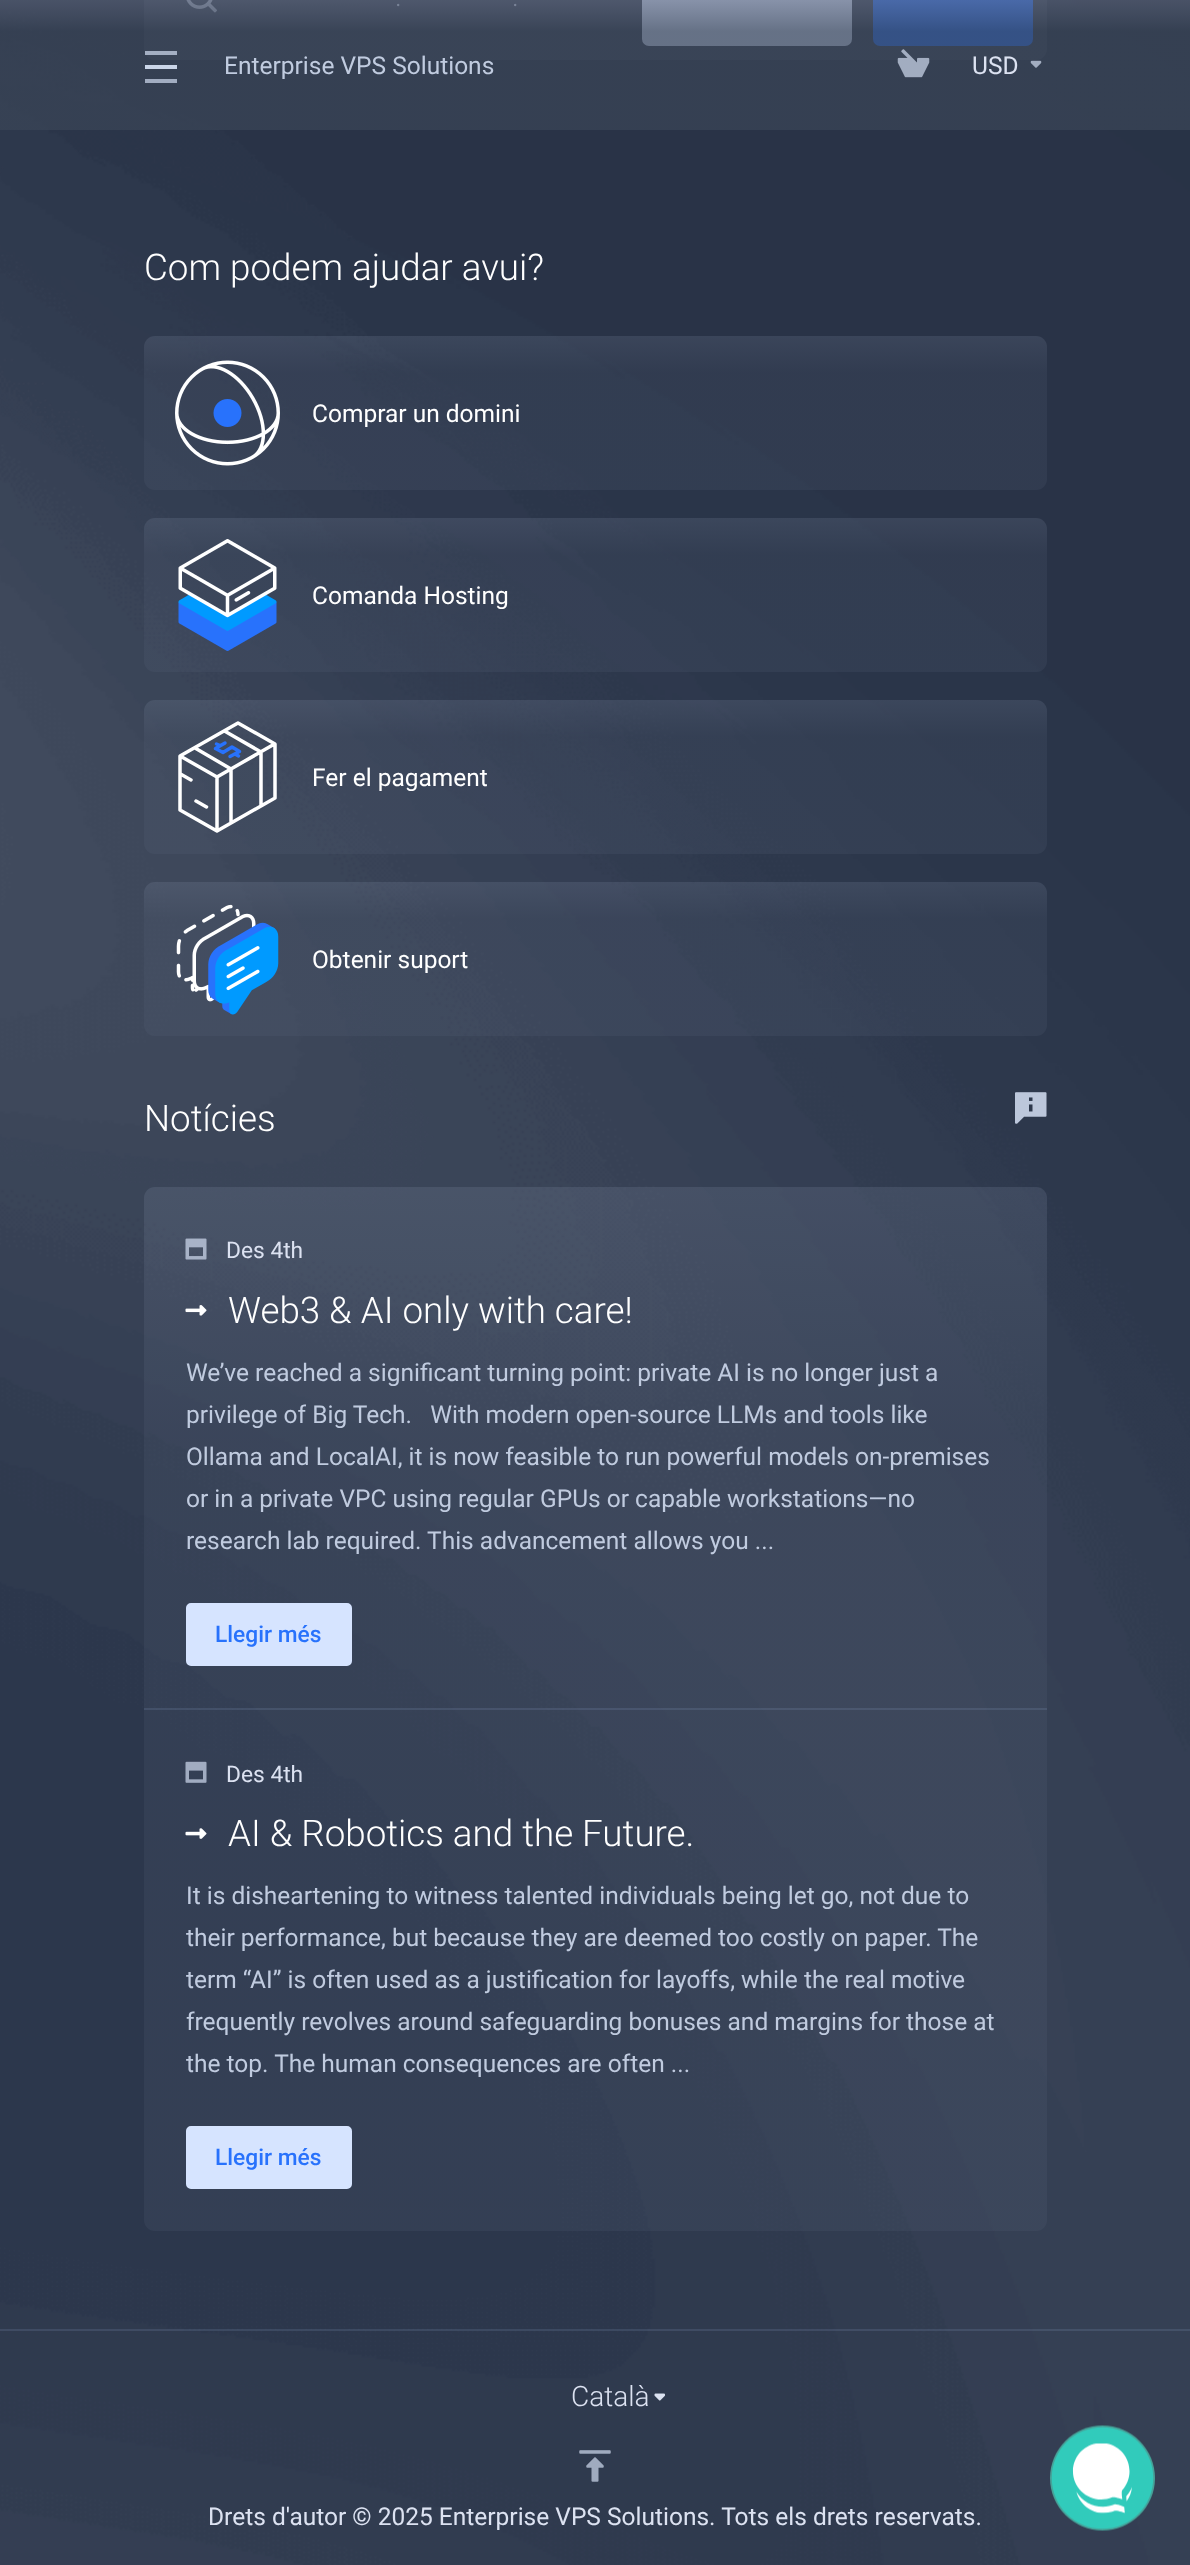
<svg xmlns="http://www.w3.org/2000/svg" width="1190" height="2565">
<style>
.a{font:300 28px Roboto;fill:#c0cbdf}
.b{font:300 36.75px Roboto;fill:#fff}
.c{font:24.5px Roboto;fill:#fff}
.d{font:22.75px Roboto;fill:#dce2f1}
.e{font:24.5px Roboto;fill:#c0cbdf}
.f{font:500 22.75px Roboto;fill:#2872fc}
.g{font:300 28px Roboto;fill:#dce2f1}
.h{font:24.5px Roboto;fill:#dce2f1}
</style>
<defs>
<linearGradient id="g1" gradientUnits="userSpaceOnUse" x1="595" y1="336" x2="595" y2="490"><stop offset="0" stop-color="#97a4be" stop-opacity="0.16"/><stop offset="0.24" stop-color="#5d6980" stop-opacity="0.16"/><stop offset="1" stop-color="#5d6980" stop-opacity="0.16"/></linearGradient>
<linearGradient id="g2" gradientUnits="userSpaceOnUse" x1="595" y1="518" x2="595" y2="672"><stop offset="0" stop-color="#97a4be" stop-opacity="0.16"/><stop offset="0.24" stop-color="#5d6980" stop-opacity="0.16"/><stop offset="1" stop-color="#5d6980" stop-opacity="0.16"/></linearGradient>
<linearGradient id="g3" gradientUnits="userSpaceOnUse" x1="595" y1="700" x2="595" y2="854"><stop offset="0" stop-color="#97a4be" stop-opacity="0.16"/><stop offset="0.24" stop-color="#5d6980" stop-opacity="0.16"/><stop offset="1" stop-color="#5d6980" stop-opacity="0.16"/></linearGradient>
<linearGradient id="g4" gradientUnits="userSpaceOnUse" x1="595" y1="882" x2="595" y2="1036"><stop offset="0" stop-color="#97a4be" stop-opacity="0.16"/><stop offset="0.24" stop-color="#5d6980" stop-opacity="0.16"/><stop offset="1" stop-color="#5d6980" stop-opacity="0.16"/></linearGradient>
<linearGradient id="g5" gradientUnits="userSpaceOnUse" x1="595" y1="1187" x2="595" y2="2231"><stop offset="0" stop-color="#97a4be" stop-opacity="0.16"/><stop offset="0.24" stop-color="#5d6980" stop-opacity="0.16"/><stop offset="1" stop-color="#5d6980" stop-opacity="0.16"/></linearGradient>
<linearGradient id="g6" gradientUnits="userSpaceOnUse" x1="595" y1="0" x2="595" y2="130"><stop offset="0" stop-color="#5b6479" stop-opacity="0.64"/><stop offset="0.24" stop-color="#3a4557" stop-opacity="0.72"/><stop offset="1" stop-color="#3a4557" stop-opacity="0.72"/></linearGradient>
</defs>
<rect width="100%" height="100%" fill="#2c374c"/>
<image href="1.png" x="0" y="0" width="1190" height="2565"/>
<rect fill="#e0ebff14" x="144" y="-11" width="903" height="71" rx="11"/>
<image href="2.png" x="186" y="0" width="31" height="13"/>
<rect fill="#d6e4ff" stroke="#d6e4ff" stroke-width="2" x="643" y="-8" width="208" height="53" rx="6"/>
<rect fill="#2872fc" stroke="#2872fc" stroke-width="2" x="874" y="-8" width="158" height="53" rx="6"/>
<rect fill="url(#g1)" x="144" y="336" width="903" height="154" rx="11"/>
<image href="3.png" x="175" y="360" width="105" height="106"/>
<rect fill="url(#g2)" x="144" y="518" width="903" height="154" rx="11"/>
<image href="4.png" x="178" y="539" width="99" height="112"/>
<rect fill="url(#g3)" x="144" y="700" width="903" height="154" rx="11"/>
<path fill="none" stroke="#2872fc" stroke-width="3.5" stroke-linecap="round" stroke-linejoin="round" d="M225 743l-9.5 5.5l7.5 4l9-5.5l7.5 4.5l-9.5 5m-13.5-12.5l3.5 1.5m15 8.5l3.5 2"/>
<path fill="none" stroke="#fff" stroke-width="3.5" stroke-linecap="round" stroke-linejoin="round" d="M196 801l10.5 6m-11.5-59l36 21v53.5m-6.5-91.5l36.5 21v53m-80.5-31l10.5 6m-10-23.5l36 20.5l57.5-33m-57.5 33.5v52m-37-73.5v54l37 21l58-33v-54l-37-21z"/>
<rect fill="url(#g4)" x="144" y="882" width="903" height="154" rx="11"/>
<image href="5.png" x="176" y="904" width="103" height="111"/>
<image href="6.png" x="1015" y="1092" width="32" height="32"/>
<rect fill="url(#g5)" x="144" y="1187" width="903" height="1044" rx="11"/>
<path fill="#b2ccff1f" d="M144 1708h903v2H144z"/>
<image href="7.png" x="185" y="1238" width="22" height="22"/>
<image href="8.png" x="185" y="1305" width="22" height="11"/>
<rect fill="#d6e4ff" stroke="#d6e4ff" stroke-width="2" x="187" y="1604" width="164" height="61" rx="4"/>
<image href="9.png" x="185" y="1761" width="22" height="22"/>
<image href="10.png" x="185" y="1828" width="22" height="11"/>
<rect fill="#d6e4ff" stroke="#d6e4ff" stroke-width="2" x="187" y="2127" width="164" height="61" rx="4"/>
<path fill="#b2ccff1f" d="M0 2329h1190v2H0z"/>
<image href="11.png" x="654" y="2393" width="11" height="8"/>
<image href="12.png" x="579" y="2450" width="32" height="32"/>
<image href="15.png" x="1050" y="2425" width="105" height="106"/>
<text class="a" x="395" y="6">.</text>
<text class="a" x="512" y="6">.</text>
<text class="b" x="144" y="280">Com podem ajudar avui?</text>
<text class="c" x="312" y="422">Comprar un domini</text>
<text class="c" x="312" y="604">Comanda Hosting</text>
<text class="c" x="312" y="786">Fer el pagament</text>
<text class="c" x="312" y="968">Obtenir suport</text>
<text class="b" x="144" y="1131">Notícies</text>
<text class="d" x="226" y="1258">Des 4th</text>
<text class="b" x="228" y="1323">Web3 &amp; AI only with care!</text>
<text class="e" x="186" y="1381">We’ve reached a significant turning point: private AI is no longer just a</text>
<text class="e" xml:space="preserve" x="186" y="1423">privilege of Big Tech.   With modern open-source LLMs and tools like</text>
<text class="e" x="186" y="1465">Ollama and LocalAI, it is now feasible to run powerful models on-premises</text>
<text class="e" x="186" y="1507">or in a private VPC using regular GPUs or capable workstations—no</text>
<text class="e" x="186" y="1549">research lab required. This advancement allows you ...</text>
<text class="f" x="215" y="1642">Llegir més</text>
<text class="d" x="226" y="1782">Des 4th</text>
<text class="b" x="228" y="1846">AI &amp; Robotics and the Future.</text>
<text class="e" x="186" y="1904">It is disheartening to witness talented individuals being let go, not due to</text>
<text class="e" x="186" y="1946">their performance, but because they are deemed too costly on paper. The</text>
<text class="e" x="186" y="1988">term “AI” is often used as a justification for layoffs, while the real motive</text>
<text class="e" x="186" y="2030">frequently revolves around safeguarding bonuses and margins for those at</text>
<text class="e" x="186" y="2072">the top. The human consequences are often ...</text>
<text class="f" x="215" y="2165">Llegir més</text>
<text class="g" x="571" y="2406">Català</text>
<text class="h" x="208" y="2525">Drets d'autor © 2025 Enterprise VPS Solutions. Tots els drets reservats.</text>
<path fill="url(#g6)" d="M0 0h1190v130H0z"/>
<path fill="#a4afc3" d="M145 51h32v4H145z"/>
<path fill="#cad5e8" d="M145 65h32v4H145z"/>
<path fill="#a2adc1" d="M145 79h32v4H145z"/>
<text class="e" x="224" y="74">Enterprise VPS Solutions</text>
<image href="13.png" x="897" y="49" width="33" height="29"/>
<text class="h" x="972" y="74">USD</text>
<image href="14.png" x="1030" y="60" width="12" height="8"/>
</svg>
